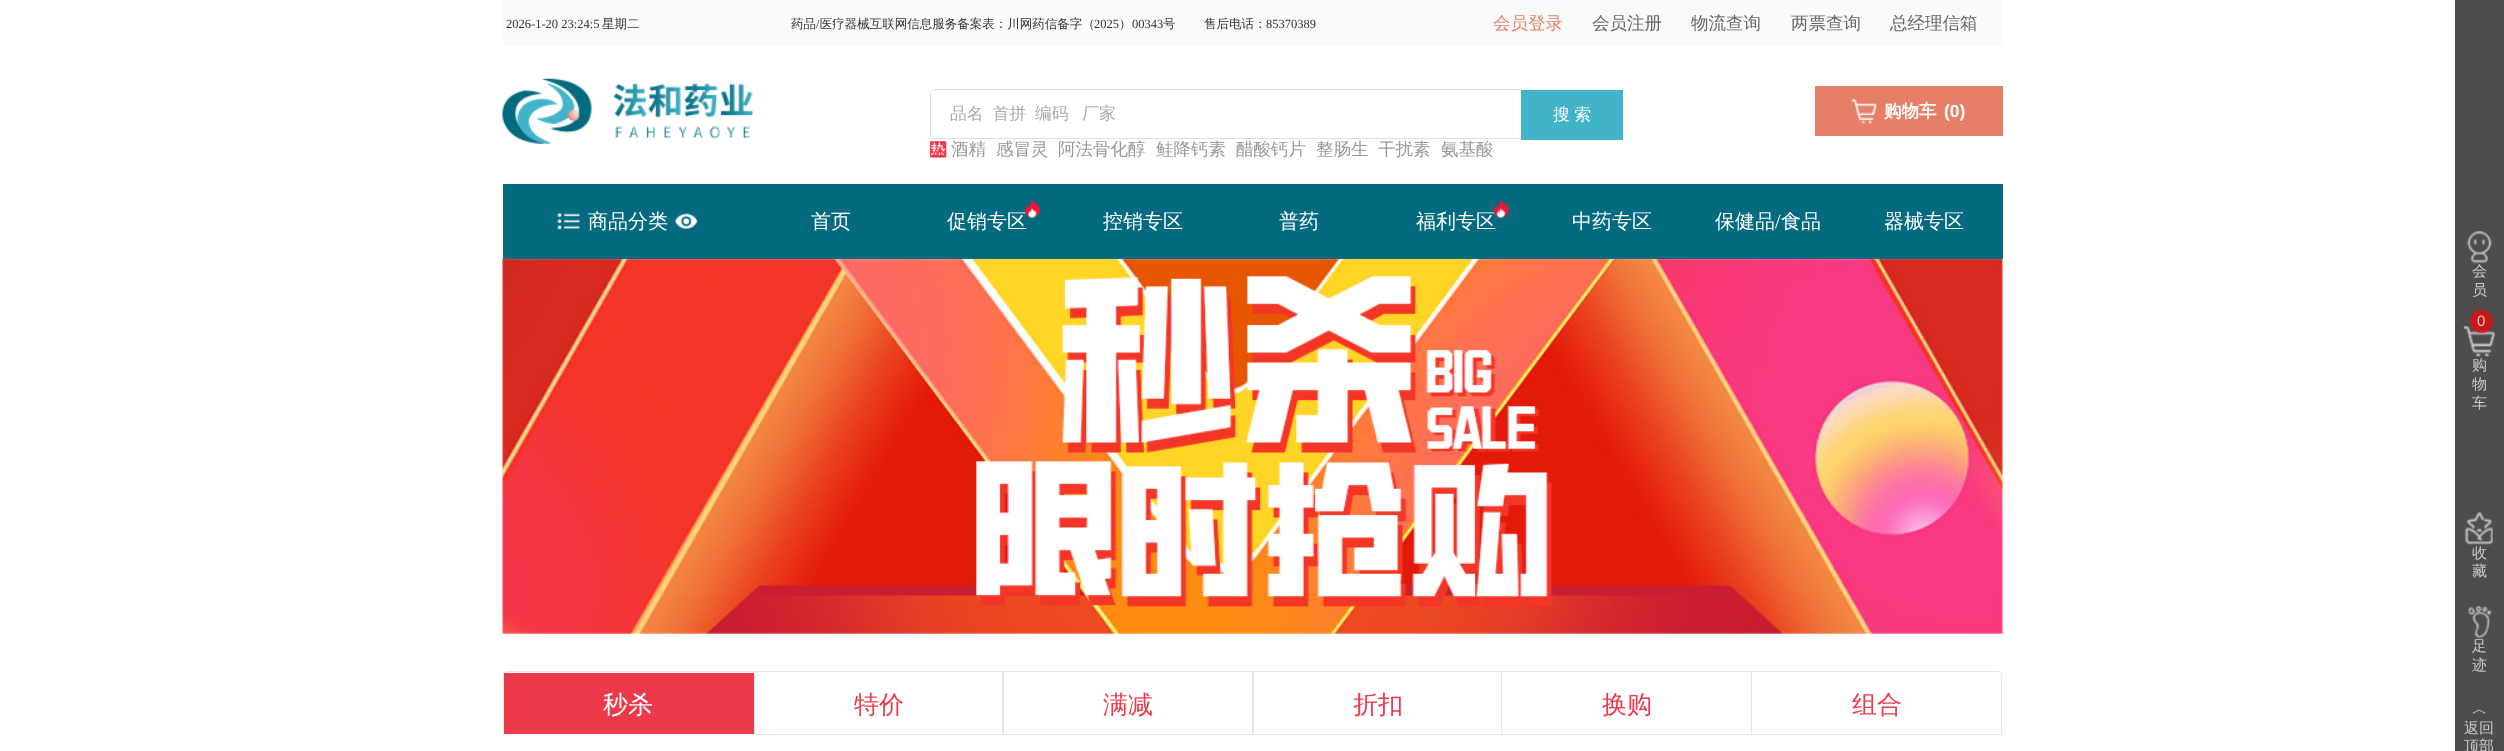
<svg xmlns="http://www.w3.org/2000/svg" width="2504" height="751">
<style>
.a{font:12.5px Liberation Serif;fill:#333}
.b{font:500 12.5px WenQuanYi Zen Hei;fill:#333}
.c{font:500 17.5px WenQuanYi Zen Hei;fill:#e57f67}
.d{font:500 17.5px WenQuanYi Zen Hei;fill:#666}
.e{font:500 16.75px WenQuanYi Zen Hei;fill:#aaa}
.f{font:500 16.75px WenQuanYi Zen Hei;fill:#fff}
.g{font:500 17.5px WenQuanYi Zen Hei;fill:#999}
.h{font:bold 17.5px WenQuanYi Zen Hei;fill:#fff}
.i{font:bold 17.5px Liberation Sans;fill:#fff}
.j{font:500 20px WenQuanYi Zen Hei;fill:#fff}
.k{font:20px Liberation Serif;fill:#fff}
.l{font:500 25px WenQuanYi Zen Hei;fill:#fff}
.m{font:500 25px WenQuanYi Zen Hei;fill:#ec3a4b}
.n{font:500 15px WenQuanYi Zen Hei;fill:#cacaca}
.o{font:15px Liberation Sans;fill:#cacaca}
</style>
<defs>
<clipPath id="clip1"><path d="M503 671h1500v64H503z"/></clipPath>
</defs>
<rect width="100%" height="100%" fill="#fff"/>
<path fill="#fafafa" d="M503 0h1500v46H503z"/>
<image href="1.png" x="502" y="78" width="251" height="66"/>
<rect fill="none" stroke="#dcdfe6" x="930.5" y="89.5" width="594" height="49" rx="4.5"/>
<path fill="#42b4c9" d="M1521 90h102v50H1521z"/>
<image href="2.png" x="930" y="141" width="17" height="17"/>
<path fill="#e57f67" d="M1815 86h188v50H1815z"/>
<image href="3.png" x="1851" y="98" width="26" height="26"/>
<image href="8.png" x="502" y="258" width="1501" height="376"/>
<path fill="#036a7f" d="M503 184h1500v75H503z"/>
<image href="4.png" x="557" y="212" width="24" height="18"/>
<image href="5.png" x="674" y="213" width="24" height="16"/>
<path fill="#e4e7ed" d="M754 734h1249v1H754z"/>
<g clip-path="url(#clip1)">
<path fill="#e4e7ed" fill-rule="evenodd" d="M508 671h1490c2 0 4 2 4 5v59h-1500v-59c0-3 3-5 6-5zm0 1h1490c2 0 3 2 3 4v59h-1497v-59c0-2 1-4 4-4z"/>
</g>
<path fill="#ec3a4b" d="M504 673h250v61H504z"/>
<path fill="#e4e7ed" d="M754 735v-63h1v62z"/>
<path fill="#e4e7ed" d="M1002 735v-63h2v62z"/>
<path fill="#e4e7ed" d="M1252 735v-63h2v62z"/>
<path fill="#e4e7ed" d="M1501 735v-63h1v62z"/>
<path fill="#e4e7ed" d="M1751 735v-63h1v62z"/>
<path fill="#4d4d4d" d="M2455 0h49v751H2455z"/>
<image href="9.png" x="2466" y="231" width="26" height="33"/>
<image href="10.png" x="2463" y="325" width="33" height="32"/>
<circle fill="#ff0000b3" cx="2481.5" cy="321.5" r="11.5"/>
<image href="11.png" x="2464" y="512" width="29" height="33"/>
<image href="12.png" x="2468" y="606" width="24" height="33"/>
<text class="a" x="506" y="28">2026-1-20 23:24:5</text>
<text class="b" x="602" y="28">星期二</text>
<text class="b" x="791" y="28">药品 医疗器械互联网信息服务备案表：川网药信备字（</text>
<text class="b" x="1163" y="28">号</text>
<text class="b" x="1204" y="28">售后电话：</text>
<text class="a" x="816" y="28">/</text>
<text class="a" x="1094" y="28">2025</text>
<text class="b" x="1119" y="28">）</text>
<text class="a" x="1132" y="28">00343</text>
<text class="a" x="1266" y="28">85370389</text>
<text class="c" x="1493" y="29">会员登录</text>
<text class="d" x="1592" y="29">会员注册</text>
<text class="d" x="1691" y="29">物流查询</text>
<text class="d" x="1791" y="29">两票查询</text>
<text class="d" x="1890" y="29">总经理信箱</text>
<text class="e" xml:space="preserve" x="950" y="119" word-spacing="-0.5">品名  首拼  编码   厂家</text>
<text class="f" x="1553" y="120" word-spacing="-0.5">搜 索</text>
<text class="g" x="951" y="155">酒精</text>
<text class="g" x="996" y="155">感冒灵</text>
<text class="g" x="1058" y="155">阿法骨化醇</text>
<text class="g" x="1156" y="155">鲑降钙素</text>
<text class="g" x="1236" y="155">醋酸钙片</text>
<text class="g" x="1316" y="155">整肠生</text>
<text class="g" x="1378" y="155">干扰素</text>
<text class="g" x="1441" y="155">氨基酸</text>
<text class="h" x="1884" y="117">购物车</text>
<text class="i" x="1944" y="117">(0)</text>
<text class="j" x="588" y="228">商品分类</text>
<text class="j" x="811" y="228">首页</text>
<text class="j" x="947" y="228">促销专区</text>
<image href="6.png" x="1025" y="200" width="15" height="18"/>
<text class="j" x="1103" y="228">控销专区</text>
<text class="j" x="1279" y="228">普药</text>
<text class="j" x="1416" y="228">福利专区</text>
<image href="7.png" x="1493" y="200" width="16" height="18"/>
<text class="j" x="1572" y="228">中药专区</text>
<text class="j" x="1715" y="228">保健品</text>
<text class="k" x="1775" y="228">/</text>
<text class="j" x="1781" y="228">食品</text>
<text class="j" x="1884" y="228">器械专区</text>
<text class="l" x="603" y="713">秒杀</text>
<text class="m" x="854" y="713">特价</text>
<text class="m" x="1103" y="713">满减</text>
<text class="m" x="1353" y="713">折扣</text>
<text class="m" x="1602" y="713">换购</text>
<text class="m" x="1852" y="713">组合</text>
<text class="n" x="2472" y="276">会</text>
<text class="n" x="2472" y="295">员</text>
<text class="o" x="2477" y="326">0</text>
<text class="n" x="2472" y="370">购</text>
<text class="n" x="2472" y="389">物</text>
<text class="n" x="2472" y="408">车</text>
<text class="n" x="2472" y="558">收</text>
<text class="n" x="2472" y="576">藏</text>
<text class="n" x="2472" y="651">足</text>
<text class="n" x="2472" y="670">迹</text>
<text class="n" x="2472" y="714">︿</text>
<text class="n" x="2464" y="733">返回</text>
<text class="n" x="2464" y="751">顶部</text>
</svg>
